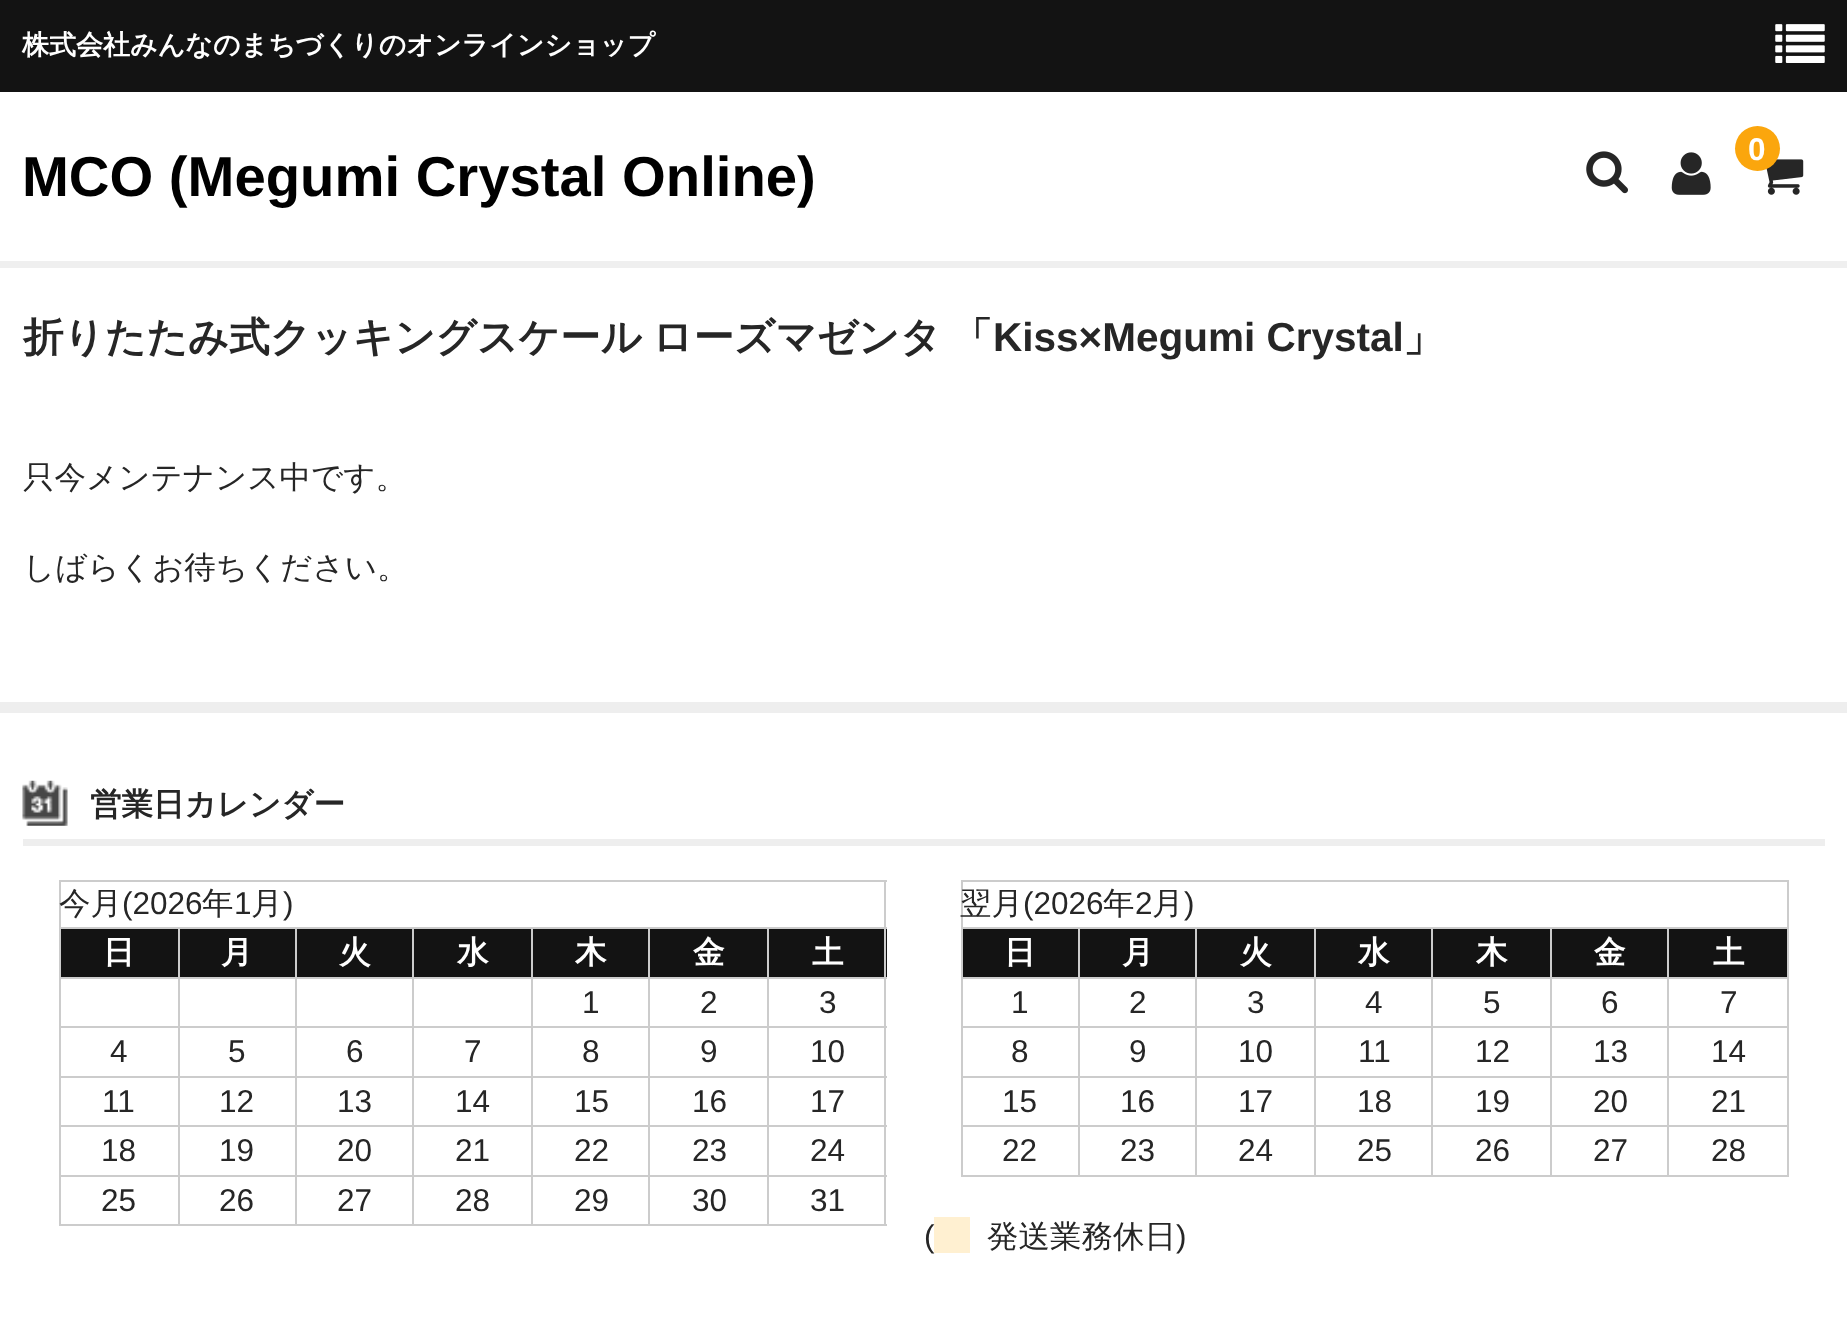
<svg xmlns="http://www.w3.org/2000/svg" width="1847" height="1324">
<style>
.a{font:bold 27px WenQuanYi Zen Hei;fill:#fff}
.b{font:bold 31.5px Liberation Sans;fill:#fff}
.c{font:bold 56.25px Liberation Sans;fill:#000}
.d{font:bold 40.5px WenQuanYi Zen Hei;fill:#262626}
.e{font:bold 40.5px Liberation Sans;fill:#262626}
.f{font:500 31.5px WenQuanYi Zen Hei;fill:#262626}
.g{font:bold 31.5px WenQuanYi Zen Hei;fill:#262626}
.h{font:31.5px Liberation Sans;fill:#262626}
.i{font:bold 31.5px WenQuanYi Zen Hei;fill:#fff}
</style>
<rect width="100%" height="100%" fill="#fff"/>
<path fill="#efefef" d="M0 261h1847v7H0z"/>
<path fill="#131313" d="M0 0h1847v92H0z"/>
<image href="1.png" x="1586" y="151" width="42" height="43"/>
<image href="2.png" x="1671" y="152" width="40" height="43"/>
<image href="3.png" x="1766" y="159" width="38" height="36"/>
<circle fill="#fba60d" cx="1757.5" cy="148.5" r="22.5"/>
<image href="4.png" x="1775" y="24" width="50" height="39"/>
<path fill="#eee" d="M0 702h1847v11H0z"/>
<path fill="#eee" d="M23 839h1802v7H23z"/>
<image href="5.png" x="22" y="780" width="46" height="46"/>
<path fill="#ccc" d="M59 880h828v2H59z"/>
<path fill="#131313" d="M769 929h118v48H769z"/>
<path fill="#ccc" d="M884 880h2v346H884z"/>
<path fill="#ccc" d="M59 1224h828v2H59z"/>
<path fill="#ccc" d="M59 880h2v346H59z"/>
<path fill="#131313" d="M61 929h117v48H61z"/>
<path fill="#ccc" d="M767 927h120v2H767z"/>
<path fill="#ccc" d="M767 977h120v2H767z"/>
<path fill="#ccc" d="M767 1026h120v2H767z"/>
<path fill="#ccc" d="M767 1076h120v2H767z"/>
<path fill="#ccc" d="M767 1125h120v2H767z"/>
<path fill="#ccc" d="M767 1175h120v2H767z"/>
<path fill="#ccc" d="M767 1175h2v51H767z"/>
<path fill="#ccc" d="M648 1175h122v2H648z"/>
<path fill="#ccc" d="M767 1125h2v52H767z"/>
<path fill="#ccc" d="M648 1125h122v2H648z"/>
<path fill="#ccc" d="M767 1076h2v51H767z"/>
<path fill="#ccc" d="M648 1076h122v2H648z"/>
<path fill="#ccc" d="M767 1026h2v52H767z"/>
<path fill="#ccc" d="M648 1026h122v2H648z"/>
<path fill="#ccc" d="M767 977h2v51H767z"/>
<path fill="#ccc" d="M648 977h122v2H648z"/>
<path fill="#ccc" d="M767 927h2v52H767z"/>
<path fill="#ccc" d="M648 927h122v2H648z"/>
<path fill="#ccc" d="M648 1175h2v51H648z"/>
<path fill="#ccc" d="M531 1175h119v2H531z"/>
<path fill="#ccc" d="M648 1125h2v52H648z"/>
<path fill="#ccc" d="M531 1125h119v2H531z"/>
<path fill="#ccc" d="M648 1076h2v51H648z"/>
<path fill="#ccc" d="M531 1076h119v2H531z"/>
<path fill="#ccc" d="M648 1026h2v52H648z"/>
<path fill="#ccc" d="M531 1026h119v2H531z"/>
<path fill="#ccc" d="M648 977h2v51H648z"/>
<path fill="#ccc" d="M531 977h119v2H531z"/>
<path fill="#ccc" d="M648 927h2v52H648z"/>
<path fill="#ccc" d="M531 927h119v2H531z"/>
<path fill="#ccc" d="M531 1175h2v51H531z"/>
<path fill="#ccc" d="M412 1175h121v2H412z"/>
<path fill="#ccc" d="M531 1125h2v52H531z"/>
<path fill="#ccc" d="M412 1125h121v2H412z"/>
<path fill="#ccc" d="M531 1076h2v51H531z"/>
<path fill="#ccc" d="M412 1076h121v2H412z"/>
<path fill="#ccc" d="M531 1026h2v52H531z"/>
<path fill="#ccc" d="M412 1026h121v2H412z"/>
<path fill="#ccc" d="M531 977h2v51H531z"/>
<path fill="#ccc" d="M412 977h121v2H412z"/>
<path fill="#ccc" d="M531 927h2v52H531z"/>
<path fill="#ccc" d="M412 927h121v2H412z"/>
<path fill="#ccc" d="M412 1175h2v51H412z"/>
<path fill="#ccc" d="M295 1175h119v2H295z"/>
<path fill="#ccc" d="M412 1125h2v52H412z"/>
<path fill="#ccc" d="M295 1125h119v2H295z"/>
<path fill="#ccc" d="M412 1076h2v51H412z"/>
<path fill="#ccc" d="M295 1076h119v2H295z"/>
<path fill="#ccc" d="M412 1026h2v52H412z"/>
<path fill="#ccc" d="M295 1026h119v2H295z"/>
<path fill="#ccc" d="M412 977h2v51H412z"/>
<path fill="#ccc" d="M295 977h119v2H295z"/>
<path fill="#ccc" d="M412 927h2v52H412z"/>
<path fill="#ccc" d="M295 927h119v2H295z"/>
<path fill="#ccc" d="M295 1175h2v51H295z"/>
<path fill="#ccc" d="M178 1175h119v2H178z"/>
<path fill="#ccc" d="M295 1125h2v52H295z"/>
<path fill="#ccc" d="M178 1125h119v2H178z"/>
<path fill="#ccc" d="M295 1076h2v51H295z"/>
<path fill="#ccc" d="M178 1076h119v2H178z"/>
<path fill="#ccc" d="M295 1026h2v52H295z"/>
<path fill="#ccc" d="M178 1026h119v2H178z"/>
<path fill="#ccc" d="M295 977h2v51H295z"/>
<path fill="#ccc" d="M178 977h119v2H178z"/>
<path fill="#ccc" d="M295 927h2v52H295z"/>
<path fill="#ccc" d="M178 927h119v2H178z"/>
<path fill="#ccc" d="M178 1175h2v51H178z"/>
<path fill="#ccc" d="M59 1175h121v2H59z"/>
<path fill="#ccc" d="M178 1125h2v52H178z"/>
<path fill="#ccc" d="M59 1125h121v2H59z"/>
<path fill="#ccc" d="M178 1076h2v51H178z"/>
<path fill="#ccc" d="M59 1076h121v2H59z"/>
<path fill="#ccc" d="M178 1026h2v52H178z"/>
<path fill="#ccc" d="M59 1026h121v2H59z"/>
<path fill="#ccc" d="M178 977h2v51H178z"/>
<path fill="#ccc" d="M59 977h121v2H59z"/>
<path fill="#ccc" d="M178 927h2v52H178z"/>
<path fill="#ccc" d="M59 927h121v2H59z"/>
<path fill="#131313" d="M180 929h115v48H180z"/>
<path fill="#131313" d="M297 929h115v48H297z"/>
<path fill="#131313" d="M414 929h117v48H414z"/>
<path fill="#131313" d="M533 929h115v48H533z"/>
<path fill="#131313" d="M650 929h117v48H650z"/>
<path fill="#ccc" d="M961 880h828v2H961z"/>
<path fill="#ccc" d="M1787 880h2v297H1787z"/>
<path fill="#ccc" d="M961 1175h828v2H961z"/>
<path fill="#ccc" d="M961 880h2v297H961z"/>
<path fill="#131313" d="M963 929h115v48H963z"/>
<path fill="#ccc" d="M1667 927h122v2H1667z"/>
<path fill="#131313" d="M1552 929h235v48H1552z"/>
<path fill="#ccc" d="M1667 977h122v2H1667z"/>
<path fill="#ccc" d="M1667 1026h122v2H1667z"/>
<path fill="#ccc" d="M1667 1076h122v2H1667z"/>
<path fill="#ccc" d="M1667 1125h122v2H1667z"/>
<path fill="#ccc" d="M1667 1125h2v52H1667z"/>
<path fill="#ccc" d="M1550 1125h120v2H1550z"/>
<path fill="#ccc" d="M1667 1076h2v51H1667z"/>
<path fill="#ccc" d="M1550 1076h120v2H1550z"/>
<path fill="#ccc" d="M1667 1026h2v52H1667z"/>
<path fill="#ccc" d="M1550 1026h120v2H1550z"/>
<path fill="#ccc" d="M1667 977h2v51H1667z"/>
<path fill="#ccc" d="M1550 977h120v2H1550z"/>
<path fill="#ccc" d="M1667 927h2v52H1667z"/>
<path fill="#ccc" d="M1550 927h120v2H1550z"/>
<path fill="#ccc" d="M1550 1125h2v52H1550z"/>
<path fill="#ccc" d="M1431 1125h122v2H1431z"/>
<path fill="#ccc" d="M1550 1076h2v51H1550z"/>
<path fill="#ccc" d="M1431 1076h122v2H1431z"/>
<path fill="#ccc" d="M1550 1026h2v52H1550z"/>
<path fill="#ccc" d="M1431 1026h122v2H1431z"/>
<path fill="#ccc" d="M1550 977h2v51H1550z"/>
<path fill="#ccc" d="M1431 977h122v2H1431z"/>
<path fill="#ccc" d="M1550 927h2v52H1550z"/>
<path fill="#ccc" d="M1431 927h122v2H1431z"/>
<path fill="#ccc" d="M1431 1125h2v52H1431z"/>
<path fill="#ccc" d="M1314 1125h119v2H1314z"/>
<path fill="#ccc" d="M1431 1076h2v51H1431z"/>
<path fill="#ccc" d="M1314 1076h119v2H1314z"/>
<path fill="#ccc" d="M1431 1026h2v52H1431z"/>
<path fill="#ccc" d="M1314 1026h119v2H1314z"/>
<path fill="#ccc" d="M1431 977h2v51H1431z"/>
<path fill="#ccc" d="M1314 977h119v2H1314z"/>
<path fill="#ccc" d="M1431 927h2v52H1431z"/>
<path fill="#ccc" d="M1314 927h119v2H1314z"/>
<path fill="#ccc" d="M1314 1125h2v52H1314z"/>
<path fill="#ccc" d="M1195 1125h121v2H1195z"/>
<path fill="#ccc" d="M1314 1076h2v51H1314z"/>
<path fill="#ccc" d="M1195 1076h121v2H1195z"/>
<path fill="#ccc" d="M1314 1026h2v52H1314z"/>
<path fill="#ccc" d="M1195 1026h121v2H1195z"/>
<path fill="#ccc" d="M1314 977h2v51H1314z"/>
<path fill="#ccc" d="M1195 977h121v2H1195z"/>
<path fill="#ccc" d="M1314 927h2v52H1314z"/>
<path fill="#ccc" d="M1195 927h121v2H1195z"/>
<path fill="#ccc" d="M1195 1125h2v52H1195z"/>
<path fill="#ccc" d="M1078 1125h119v2H1078z"/>
<path fill="#ccc" d="M1195 1076h2v51H1195z"/>
<path fill="#ccc" d="M1078 1076h119v2H1078z"/>
<path fill="#ccc" d="M1195 1026h2v52H1195z"/>
<path fill="#ccc" d="M1078 1026h119v2H1078z"/>
<path fill="#ccc" d="M1195 977h2v51H1195z"/>
<path fill="#ccc" d="M1078 977h119v2H1078z"/>
<path fill="#ccc" d="M1195 927h2v52H1195z"/>
<path fill="#ccc" d="M1078 927h119v2H1078z"/>
<path fill="#ccc" d="M1078 1125h2v52H1078z"/>
<path fill="#ccc" d="M961 1125h119v2H961z"/>
<path fill="#ccc" d="M1078 1076h2v51H1078z"/>
<path fill="#ccc" d="M961 1076h119v2H961z"/>
<path fill="#ccc" d="M1078 1026h2v52H1078z"/>
<path fill="#ccc" d="M961 1026h119v2H961z"/>
<path fill="#ccc" d="M1078 977h2v51H1078z"/>
<path fill="#ccc" d="M961 977h119v2H961z"/>
<path fill="#ccc" d="M1078 927h2v52H1078z"/>
<path fill="#ccc" d="M961 927h119v2H961z"/>
<path fill="#131313" d="M1080 929h115v48H1080z"/>
<path fill="#131313" d="M1197 929h117v48H1197z"/>
<path fill="#131313" d="M1316 929h115v48H1316z"/>
<path fill="#131313" d="M1433 929h117v48H1433z"/>
<path fill="#fff0d1" d="M934 1217h36v36H934z"/>
<text class="a" x="22" y="54">株式会社みんなのまちづくりのオンラインショップ</text>
<text class="b" x="1748" y="160">0</text>
<text class="c" x="22" y="196">MCO (Megumi Crystal Online)</text>
<text class="d" x="23" y="351">折りたたみ式クッキングスケール</text>
<text class="d" x="652" y="351">ローズマゼンタ</text>
<text class="d" x="952" y="351">「</text>
<text class="e" x="993" y="351">Kiss×Megumi Crystal</text>
<text class="d" x="1403" y="351">」</text>
<text class="f" x="23" y="488">只今メンテナンス中です。</text>
<text class="f" x="23" y="578">しばらくお待ちください。</text>
<text class="g" x="90" y="815">営業日カレンダー</text>
<text class="f" x="59" y="914">今月</text>
<text class="h" x="122" y="914">(2026</text>
<text class="f" x="202" y="914">年</text>
<text class="h" x="234" y="914">1</text>
<text class="f" x="251" y="914">月</text>
<text class="h" x="283" y="914">)</text>
<text class="i" x="103" y="963">日</text>
<text class="i" x="221" y="963">月</text>
<text class="i" x="339" y="963">火</text>
<text class="i" x="457" y="963">水</text>
<text class="i" x="575" y="963">木</text>
<text class="i" x="693" y="963">金</text>
<text class="i" x="812" y="963">土</text>
<text class="h" x="582" y="1013">1</text>
<text class="h" x="700" y="1013">2</text>
<text class="h" x="819" y="1013">3</text>
<text class="h" x="110" y="1062">4</text>
<text class="h" x="228" y="1062">5</text>
<text class="h" x="346" y="1062">6</text>
<text class="h" x="464" y="1062">7</text>
<text class="h" x="582" y="1062">8</text>
<text class="h" x="700" y="1062">9</text>
<text class="h" x="810" y="1062">10</text>
<text class="h" x="102" y="1112">11</text>
<text class="h" x="219" y="1112">12</text>
<text class="h" x="337" y="1112">13</text>
<text class="h" x="455" y="1112">14</text>
<text class="h" x="574" y="1112">15</text>
<text class="h" x="692" y="1112">16</text>
<text class="h" x="810" y="1112">17</text>
<text class="h" x="101" y="1161">18</text>
<text class="h" x="219" y="1161">19</text>
<text class="h" x="337" y="1161">20</text>
<text class="h" x="455" y="1161">21</text>
<text class="h" x="574" y="1161">22</text>
<text class="h" x="692" y="1161">23</text>
<text class="h" x="810" y="1161">24</text>
<text class="h" x="101" y="1211">25</text>
<text class="h" x="219" y="1211">26</text>
<text class="h" x="337" y="1211">27</text>
<text class="h" x="455" y="1211">28</text>
<text class="h" x="574" y="1211">29</text>
<text class="h" x="692" y="1211">30</text>
<text class="h" x="810" y="1211">31</text>
<text class="f" x="960" y="914">翌月</text>
<text class="h" x="1023" y="914">(2026</text>
<text class="f" x="1103" y="914">年</text>
<text class="h" x="1135" y="914">2</text>
<text class="f" x="1152" y="914">月</text>
<text class="h" x="1184" y="914">)</text>
<text class="i" x="1004" y="963">日</text>
<text class="i" x="1122" y="963">月</text>
<text class="i" x="1240" y="963">火</text>
<text class="i" x="1358" y="963">水</text>
<text class="i" x="1476" y="963">木</text>
<text class="i" x="1594" y="963">金</text>
<text class="i" x="1713" y="963">土</text>
<text class="h" x="1011" y="1013">1</text>
<text class="h" x="1129" y="1013">2</text>
<text class="h" x="1247" y="1013">3</text>
<text class="h" x="1365" y="1013">4</text>
<text class="h" x="1483" y="1013">5</text>
<text class="h" x="1601" y="1013">6</text>
<text class="h" x="1720" y="1013">7</text>
<text class="h" x="1011" y="1062">8</text>
<text class="h" x="1129" y="1062">9</text>
<text class="h" x="1238" y="1062">10</text>
<text class="h" x="1358" y="1062">11</text>
<text class="h" x="1475" y="1062">12</text>
<text class="h" x="1593" y="1062">13</text>
<text class="h" x="1711" y="1062">14</text>
<text class="h" x="1002" y="1112">15</text>
<text class="h" x="1120" y="1112">16</text>
<text class="h" x="1238" y="1112">17</text>
<text class="h" x="1357" y="1112">18</text>
<text class="h" x="1475" y="1112">19</text>
<text class="h" x="1593" y="1112">20</text>
<text class="h" x="1711" y="1112">21</text>
<text class="h" x="1002" y="1161">22</text>
<text class="h" x="1120" y="1161">23</text>
<text class="h" x="1238" y="1161">24</text>
<text class="h" x="1357" y="1161">25</text>
<text class="h" x="1475" y="1161">26</text>
<text class="h" x="1593" y="1161">27</text>
<text class="h" x="1711" y="1161">28</text>
<text class="h" x="924" y="1247">(</text>
<text class="f" x="987" y="1247">発送業務休日</text>
<text class="h" x="1176" y="1247">)</text>
</svg>
